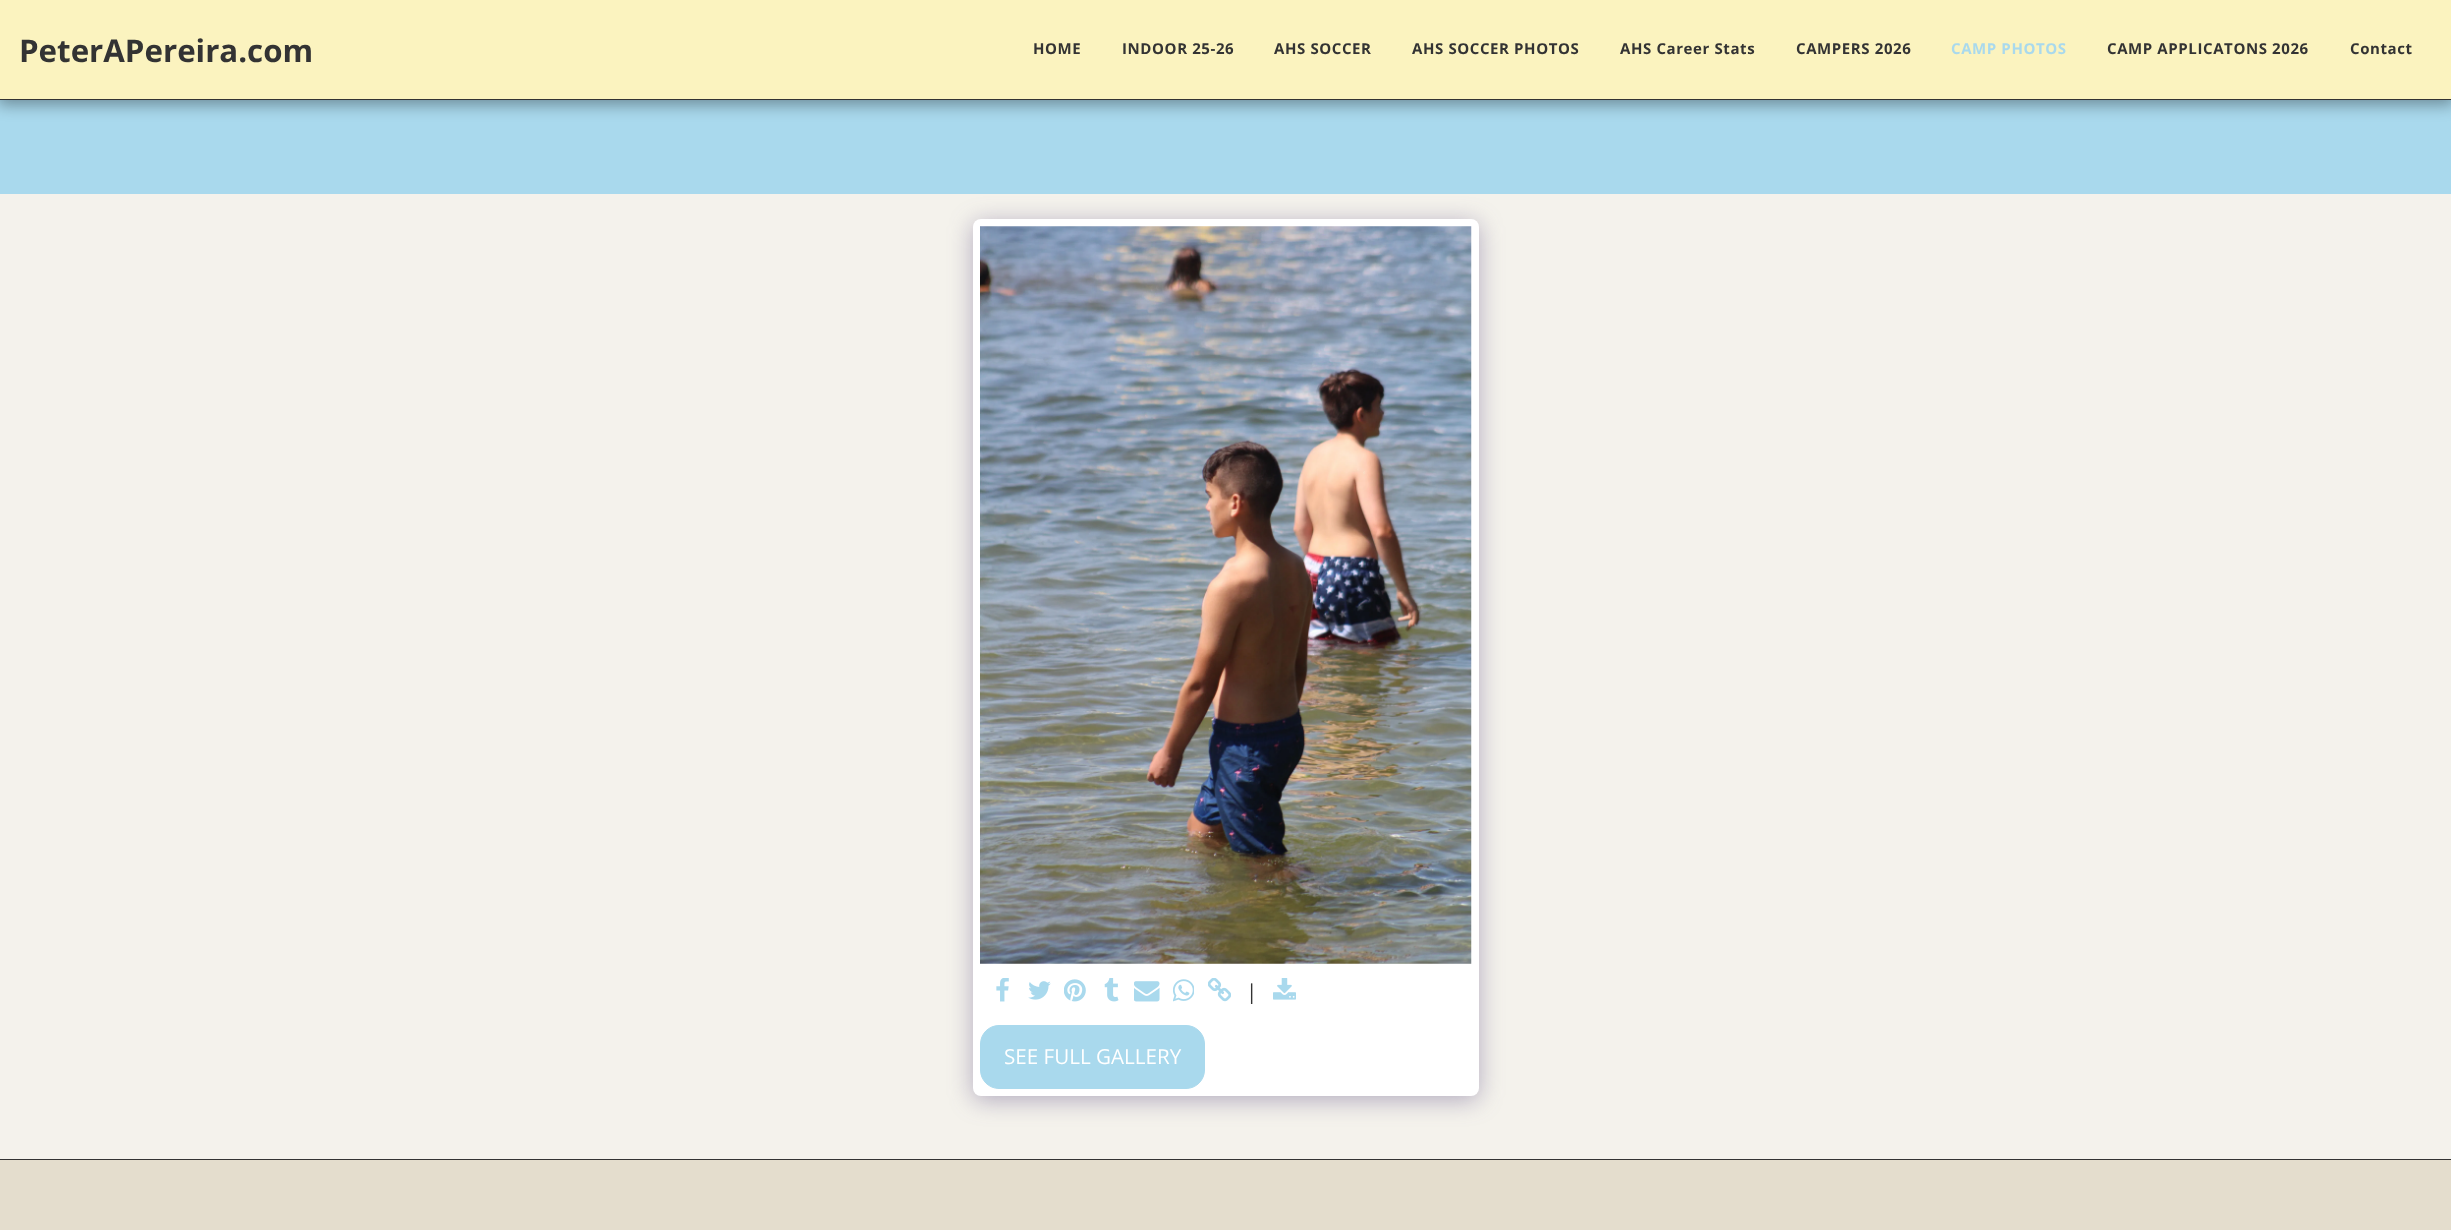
<svg xmlns="http://www.w3.org/2000/svg" width="2451" height="1230">
<style>
.a{font:bold 31.25px Open Sans;fill:#333}
.b{font:bold 15px Open Sans;letter-spacing:0.6px;fill:#333}
.c{font:bold 15px Open Sans;letter-spacing:0.6px;fill:#a9d9ed}
.d{font:20.6px Open Sans;fill:#333}
.e{font:20.6px Open Sans;fill:#fff}
</style>
<rect width="100%" height="100%" fill="#f4f2ec"/>
<path fill="#a9d9ed" d="M0 100h2451v94H0z"/>
<path fill="#00000059" filter="blur(7.5px)" d="M-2 0h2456v105H-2z"/>
<path fill="#fbf3bf" d="M0 0h2451v99H0z"/>
<path fill="#333" d="M0 99h2451v1H0z"/>
<rect fill="#4d3f7a66" filter="blur(12.5px)" x="973" y="223" width="506" height="877" rx="8"/>
<rect fill="#fff" x="973" y="219" width="506" height="877" rx="8"/>
<image href="1.png" x="980" y="226" width="492" height="738"/>
<image href="2.png" x="996" y="978" width="13" height="24"/>
<image href="3.png" x="1028" y="981" width="23" height="19"/>
<image href="4.png" x="1064" y="979" width="22" height="23"/>
<image href="5.png" x="1104" y="978" width="15" height="24"/>
<image href="6.png" x="1134" y="981" width="26" height="21"/>
<image href="7.png" x="1173" y="979" width="21" height="23"/>
<image href="8.png" x="1208" y="978" width="23" height="24"/>
<image href="9.png" x="1273" y="978" width="23" height="22"/>
<rect fill="#a9d9ed" stroke="#a9d9ed" x="980.5" y="1025.5" width="224" height="63" rx="18.5"/>
<path fill="#e4ddcd" d="M0 1160h2451v70H0z"/>
<path fill="#333" d="M0 1159h2451v1H0z"/>
<text class="a" x="19" y="62">PeterAPereira.com</text>
<text class="b" x="1033" y="54">HOME</text>
<text class="b" x="1122" y="54">INDOOR 25-26</text>
<text class="b" x="1274" y="54">AHS SOCCER</text>
<text class="b" x="1412" y="54">AHS SOCCER PHOTOS</text>
<text class="b" x="1620" y="54">AHS Career Stats</text>
<text class="b" x="1796" y="54">CAMPERS 2026</text>
<text class="c" x="1951" y="54">CAMP PHOTOS</text>
<text class="b" x="2107" y="54">CAMP APPLICATONS 2026</text>
<text class="b" x="2350" y="54">Contact</text>
<text class="d" x="1246" y="999">|</text>
<text class="e" x="1004" y="1064">SEE FULL GALLERY</text>
</svg>
